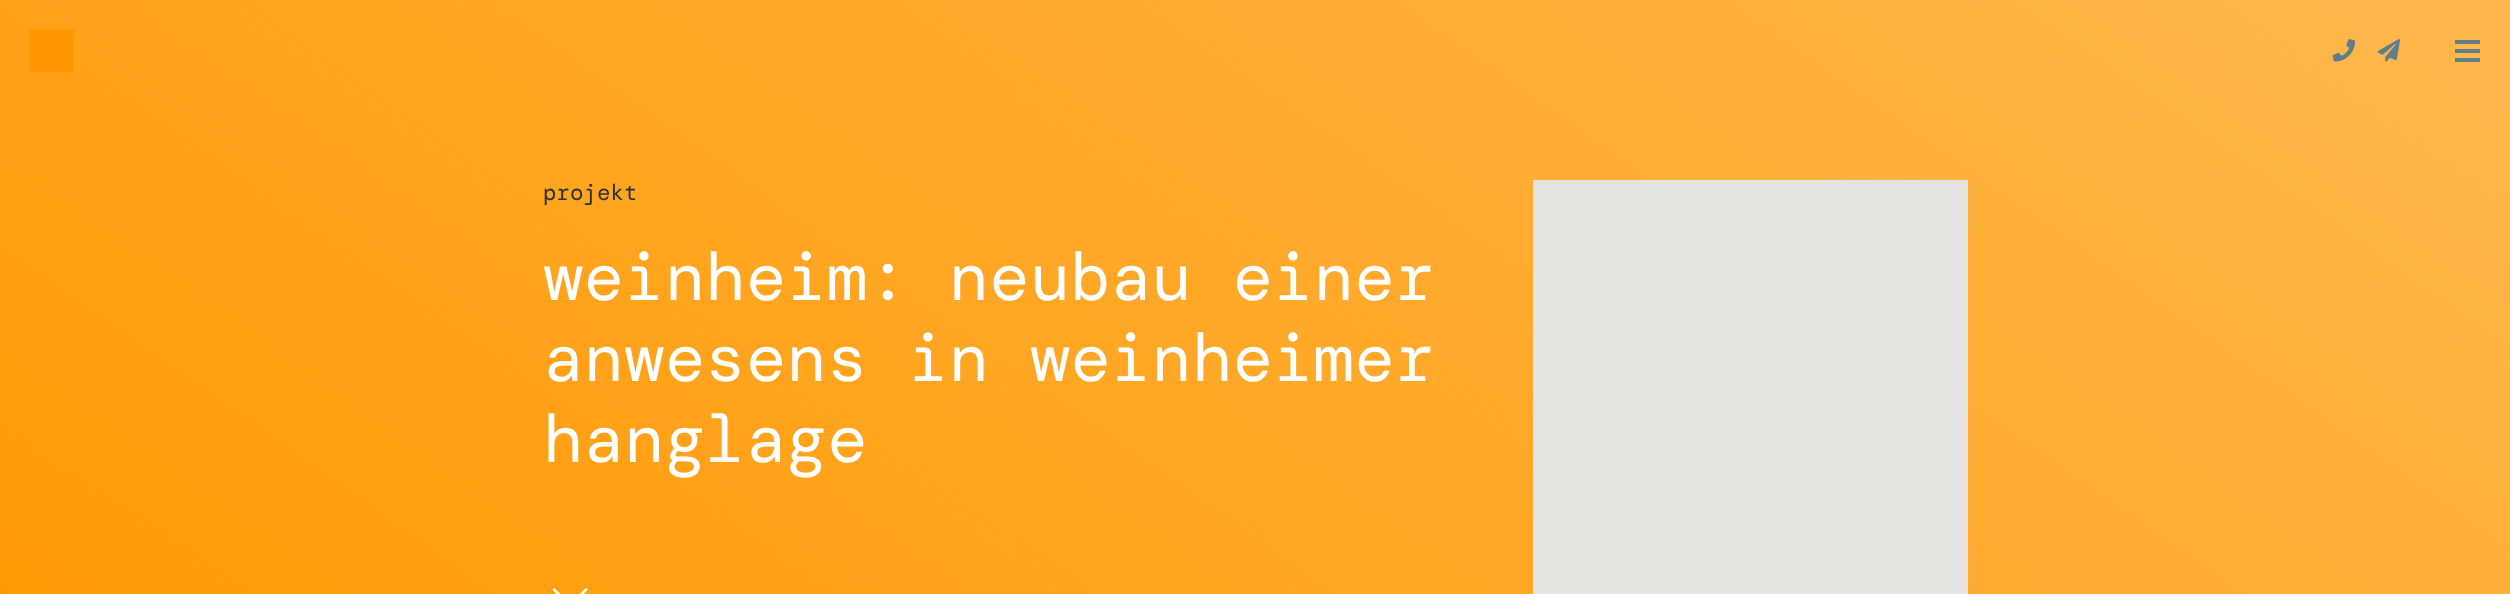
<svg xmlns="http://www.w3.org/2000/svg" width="2510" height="594">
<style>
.a{font:22.5px DM Mono;fill:#263238}
.b{font:67.6px DM Mono;fill:#fff}
</style>
<defs>
<linearGradient id="g1" gradientUnits="userSpaceOnUse" x1="656" y1="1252" x2="1854" y2="-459"><stop offset="0" stop-color="#ff9800"/><stop offset="1" stop-color="#ffb74d"/></linearGradient>
</defs>
<rect width="100%" height="100%" fill="#fff"/>
<path fill="url(#g1)" d="M0 0h2510v594H0z"/>
<image href="1.png" x="30" y="28" width="44" height="45"/>
<image href="2.png" x="2332" y="39" width="23" height="23"/>
<image href="3.png" x="2377" y="39" width="23" height="23"/>
<path fill="#607d8b" d="M2455 49h25v4H2455z"/>
<path fill="#607d8b" d="M2455 40h25v4H2455z"/>
<path fill="#607d8b" d="M2455 58h25v4H2455z"/>
<image href="4.png" x="552" y="588" width="36" height="6"/>
<path fill="#e5e3df" d="M1533 180h435v414H1533z"/>
<text class="a" x="543" y="200">projekt</text>
<text class="b" x="543" y="300">weinheim: neubau einer</text>
<text class="b" x="543" y="381">anwesens in weinheimer</text>
<text class="b" x="543" y="462">hanglage</text>
</svg>
